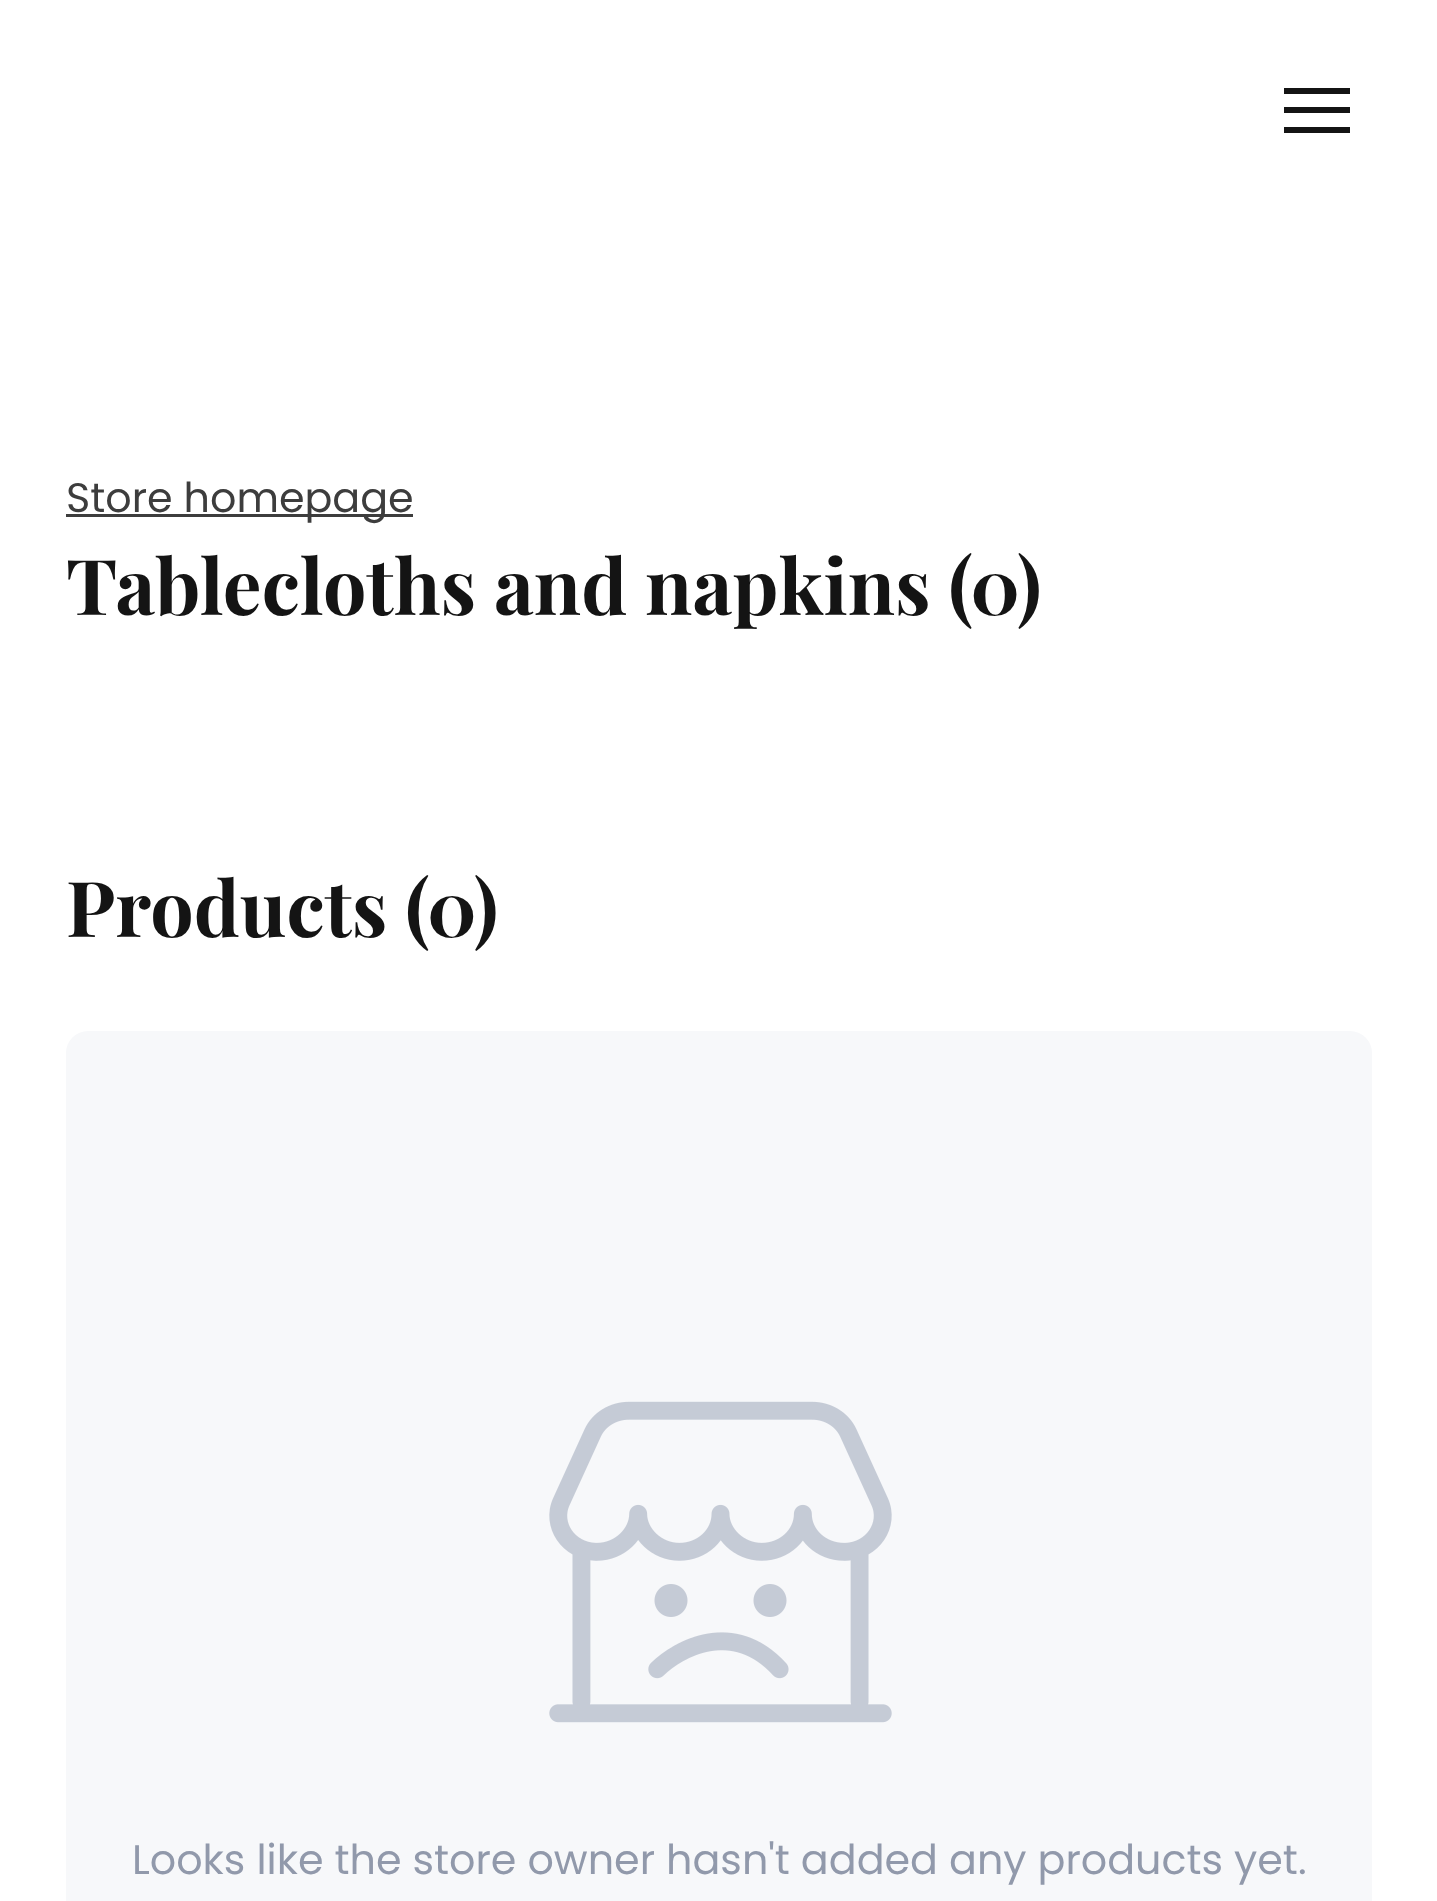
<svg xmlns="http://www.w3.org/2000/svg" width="1437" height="1901">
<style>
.a{font:41.25px Poppins;fill:#3d3d3d}
.b{font:bold 77px Playfair Display;fill:#141414}
.c{font:41.25px Poppins;fill:#9199ab}
</style>
<rect width="100%" height="100%" fill="#fff"/>
<path fill="#141414" d="M1284 88h66v6H1284z"/>
<path fill="#141414" d="M1284 107h66v6H1284z"/>
<path fill="#141414" d="M1284 127h66v6H1284z"/>
<path fill="#3d3d3d" d="M66 514h347v3H66z"/>
<rect fill="#f7f8fa" x="66" y="1031" width="1306" height="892" rx="22"/>
<image href="1.png" x="549" y="1401" width="343" height="322"/>
<text class="a" x="66" y="512">Store homepage</text>
<text class="b" x="66" y="615">Tablecloths and napkins (0)</text>
<text class="b" x="66" y="937">Products (0)</text>
<text class="c" x="132" y="1874">Looks like the store owner hasn't added any products yet.</text>
</svg>
